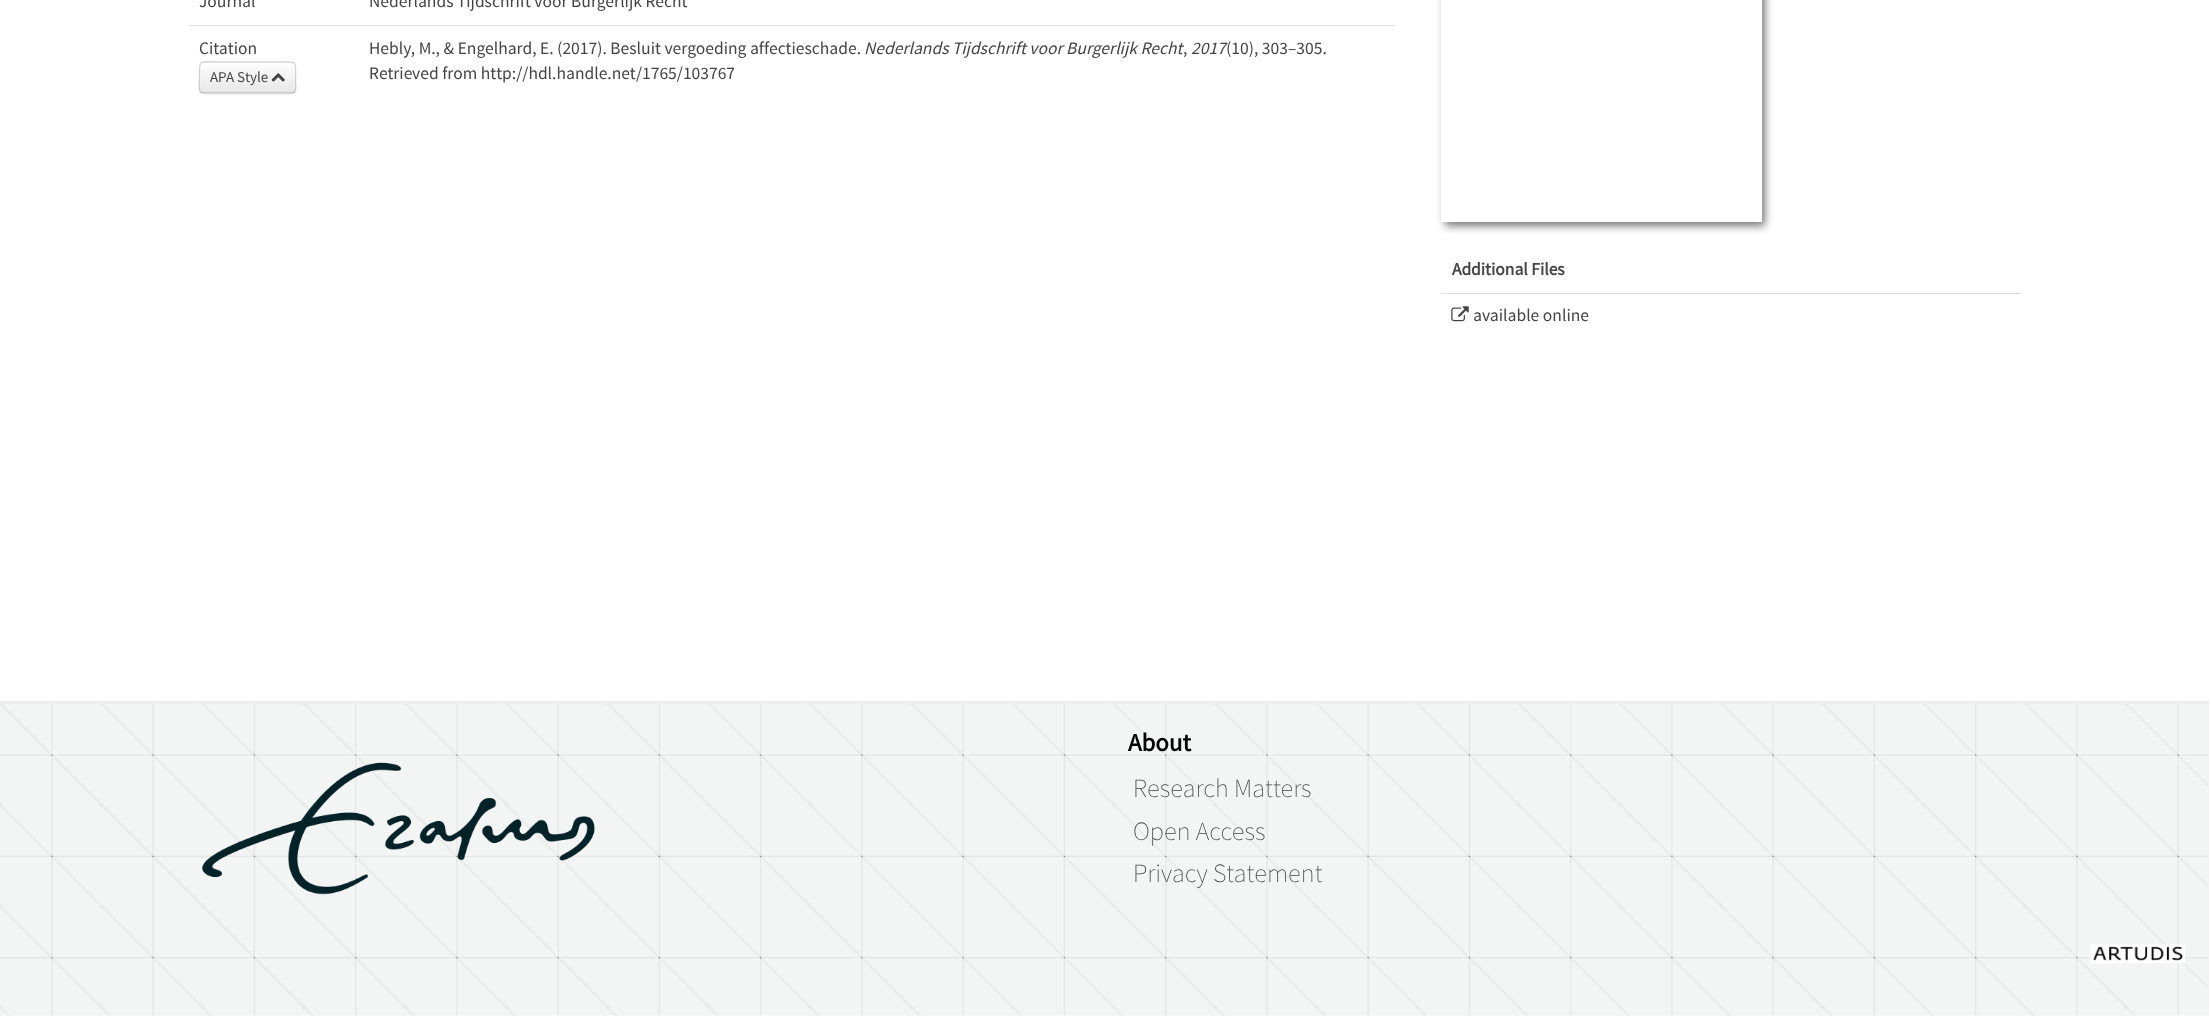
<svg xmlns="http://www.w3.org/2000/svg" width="2209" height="1016">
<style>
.a{font:17.5px Source Sans Pro;fill:#444}
.b{font:15px Source Sans Pro;fill:#444}
.c{font:italic 17.5px Source Sans Pro;fill:#444}
.d{font:bold 17.5px Source Sans Pro;fill:#444}
.e{font:bold 25px Source Sans Pro;fill:#000}
.f{font:200 26.25px Source Sans Pro;fill:#444}
</style>
<defs>
<clipPath id="clip1"><rect x="199" y="61" width="97" height="33" rx="5"/></clipPath>
<linearGradient id="g1" gradientUnits="userSpaceOnUse" x1="248" y1="62" x2="248" y2="93"><stop offset="0" stop-color="#fff"/><stop offset="1" stop-color="#e6e6e6"/></linearGradient>
</defs>
<rect width="100%" height="100%" fill="#fff"/>
<rect fill="#0000000d" filter="blur(1px)" x="199" y="63" width="97" height="32" rx="5"/>
<rect fill="#f5f5f5" x="199" y="61" width="97" height="33" rx="5"/>
<g clip-path="url(#clip1)">
<path fill="url(#g1)" d="M199 63h97v30H199z"/>
</g>
<path fill="#ffffff1f" d="M202 64c-1 0-2 2-2 3v22c0 2 2 4 4 4h87c1 0 2 0 3-1h-89c-4 0-4-3-4-7v-7c0-4-1-12 1-14z"/>
<path fill="none" stroke="#00000040" stroke-width="1.2" d="M294.5 92c-1 .5-2 1-3.5 1h-87c-1.5 0-2.5-.5-3.5-1"/>
<path fill="none" stroke="#00000026" stroke-width="1.2" d="M200.5 92c-2.5-2.5-1-11.5-1-14.5c0-19-1.5-15.5 19-15.5h58c22.5 0 19-2.5 19 19c0 3 1.5 8.5-1 11"/>
<image href="1.png" x="271" y="73" width="14" height="9"/>
<path fill="#ddd" d="M189 25h1206v1H189z"/>
<path fill="#777" filter="blur(4.5px)" d="M1445 -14h320v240H1445z"/>
<path fill="#fff" d="M1441 0h321v222H1441z"/>
<path fill="#ddd" d="M1441 293h580v1H1441z"/>
<image href="2.png" x="1451" y="306" width="18" height="16"/>
<image href="3.png" x="0" y="700" width="2209" height="316"/>
<path fill="#eee" d="M0 701h2209v3H0z"/>
<image href="4.png" x="202" y="762" width="393" height="133"/>
<image href="5.png" x="2090" y="944" width="95" height="20"/>
<text class="a" x="199" y="7">Journal</text>
<text class="a" x="369" y="7">Nederlands Tijdschrift voor Burgerlijk Recht</text>
<text class="a" x="199" y="54">Citation</text>
<text class="b" x="210" y="82">APA Style</text>
<text class="a" x="369" y="54">Hebly, M., &amp; Engelhard, E. (2017). Besluit vergoeding affectieschade.</text>
<text class="c" x="864" y="54">Nederlands Tijdschrift voor Burgerlijk Recht</text>
<text class="c" x="1191" y="54">2017</text>
<text class="a" x="1226" y="54">(10), 303–305.</text>
<text class="a" x="1183" y="54">,</text>
<text class="a" x="369" y="79">Retrieved from http://hdl.handle.net/1765/103767</text>
<text class="d" x="1452" y="275">Additional Files</text>
<text class="a" x="1473" y="321">available online</text>
<text class="e" x="1128" y="751">About</text>
<text class="f" x="1133" y="797">Research Matters</text>
<text class="f" x="1133" y="840">Open Access</text>
<text class="f" x="1133" y="882">Privacy Statement</text>
</svg>
